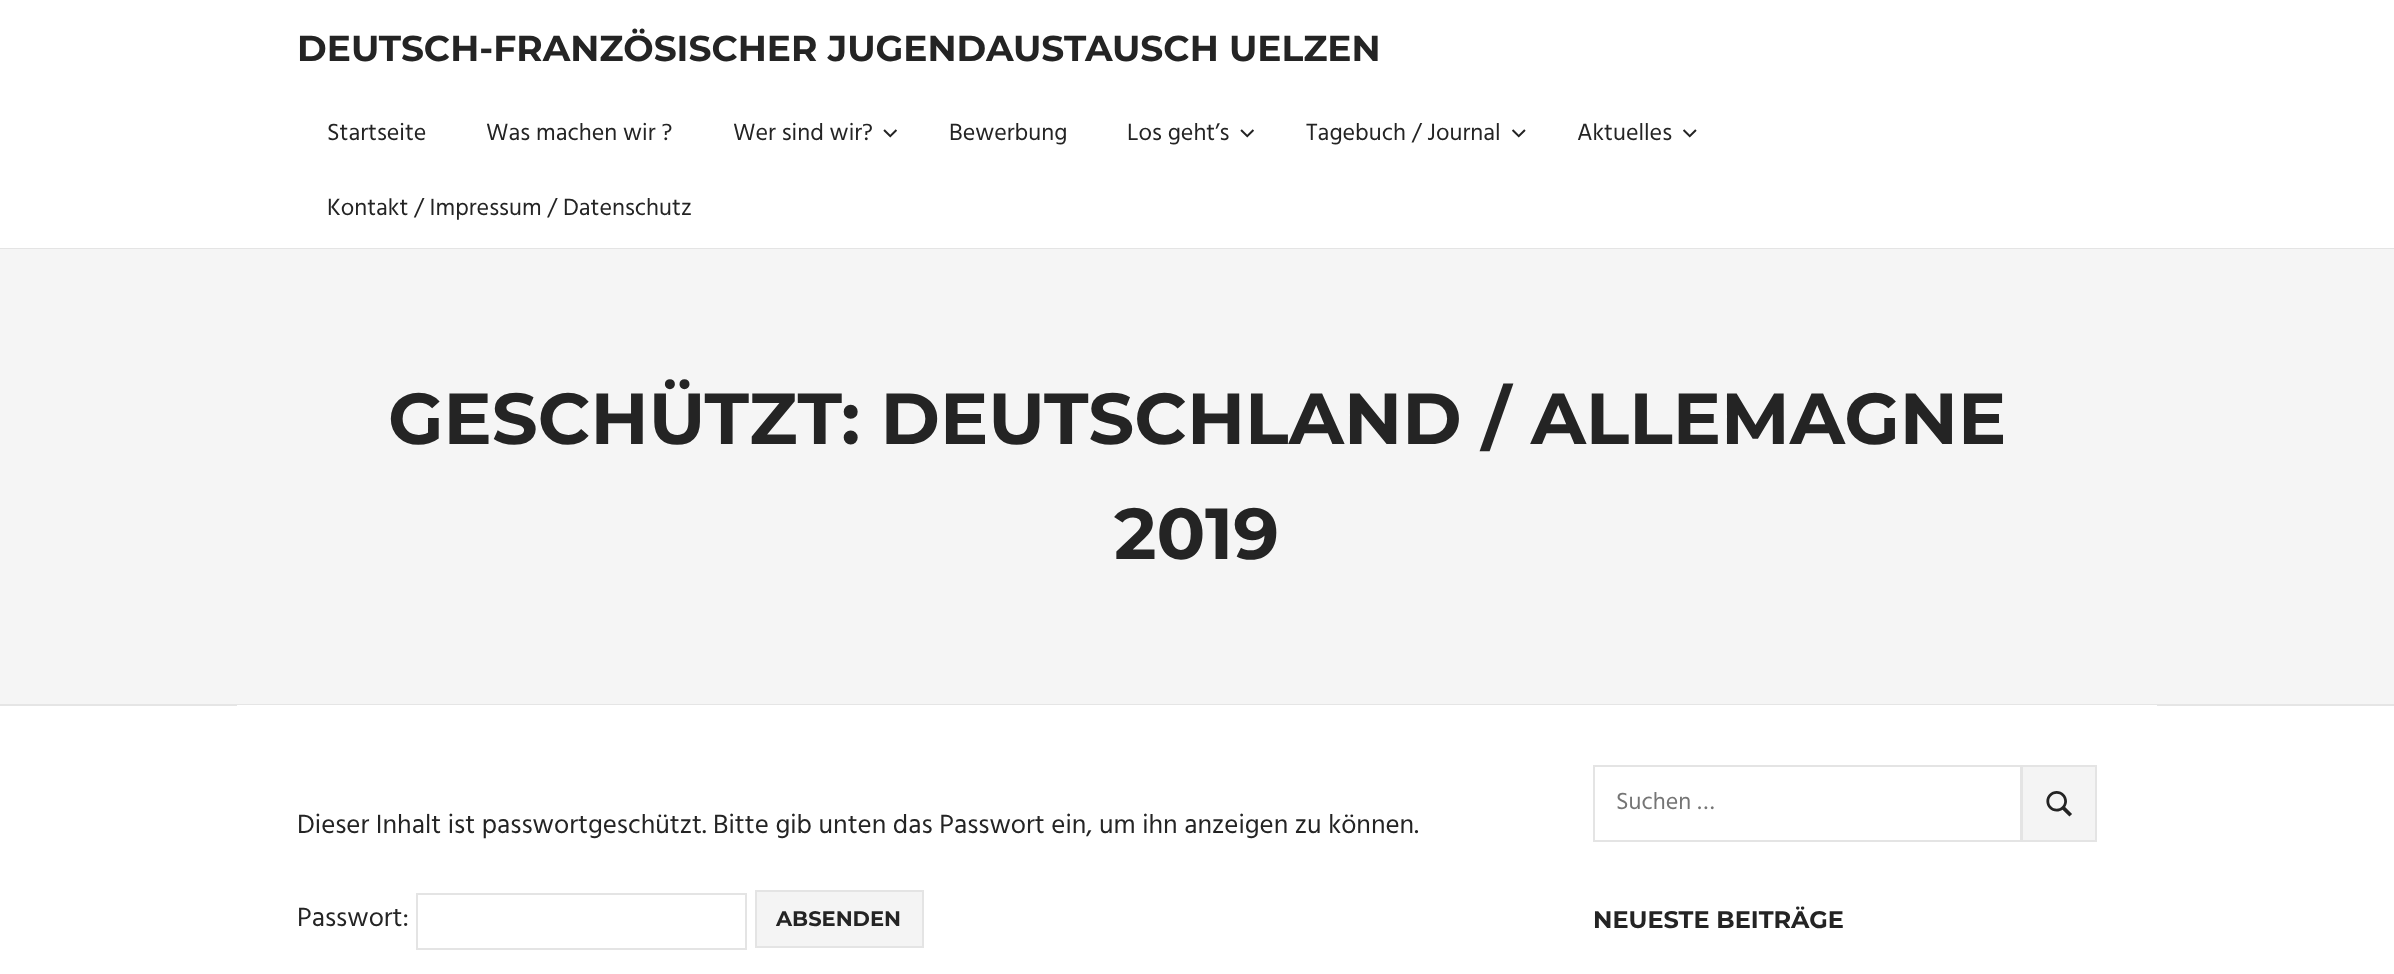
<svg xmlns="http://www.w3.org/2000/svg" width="2394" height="974">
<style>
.a{font:100 36px Montserrat;fill:#242424}
.b{font:24px Hind;fill:#242424}
.c{font:100 72px Montserrat;fill:#242424}
.d{font:27px Hind;fill:#242424}
.e{font:100 21px Montserrat;fill:#242424}
.f{font:24px Hind;fill:#757575}
.g{font:100 24px Montserrat;fill:#242424}
</style>
<rect width="100%" height="100%" fill="#fff"/>
<path fill="#e4e4e4" d="M0 248h2394v1H0z"/>
<image href="1.png" x="883" y="129" width="14" height="9"/>
<image href="1.png" x="1240" y="129" width="14" height="9"/>
<image href="2.png" x="1512" y="129" width="14" height="9"/>
<image href="3.png" x="1683" y="129" width="14" height="9"/>
<path fill="#f5f5f5" d="M0 249h2394v455H0z"/>
<path fill="#e5e5e5" d="M0 704h2394v2H0z"/>
<path fill="#fff" d="M237 705h1920v1H237z"/>
<path fill="none" stroke="#e4e4e4" stroke-width="2" d="M417 894h329v55H417z"/>
<path fill="#f4f4f4" stroke="#e4e4e4" stroke-width="2" d="M756 891h167v56H756z"/>
<path fill="none" stroke="#e4e4e4" stroke-width="2" d="M1594 766h427v75H1594z"/>
<path fill="#f4f4f4" stroke="#e4e4e4" stroke-width="2" d="M2022 766h74v75H2022z"/>
<image href="4.png" x="2046" y="791" width="26" height="26"/>
<text class="a" x="297" y="61">DEUTSCH-FRANZÖSISCHER JUGENDAUSTAUSCH UELZEN</text>
<text class="b" x="327" y="140">Startseite</text>
<text class="b" x="486" y="140">Was machen wir ?</text>
<text class="b" x="733" y="140">Wer sind wir?</text>
<text class="b" x="949" y="140">Bewerbung</text>
<text class="b" x="1127" y="140">Los geht’s</text>
<text class="b" x="1306" y="140">Tagebuch / Journal</text>
<text class="b" x="1577" y="140">Aktuelles</text>
<text class="b" x="327" y="215">Kontakt / Impressum / Datenschutz</text>
<text class="c" x="388" y="444">GESCHÜTZT: DEUTSCHLAND / ALLEMAGNE</text>
<text class="c" x="1114" y="559">2019</text>
<text class="d" x="297" y="833">Dieser Inhalt ist passwortgeschützt. Bitte gib unten das Passwort ein, um ihn anzeigen zu können.</text>
<text class="d" x="297" y="926">Passwort:</text>
<text class="e" x="776" y="926">ABSENDEN</text>
<text class="f" x="1616" y="809">Suchen …</text>
<text class="g" x="1593" y="928">NEUESTE BEITRÄGE</text>
</svg>
